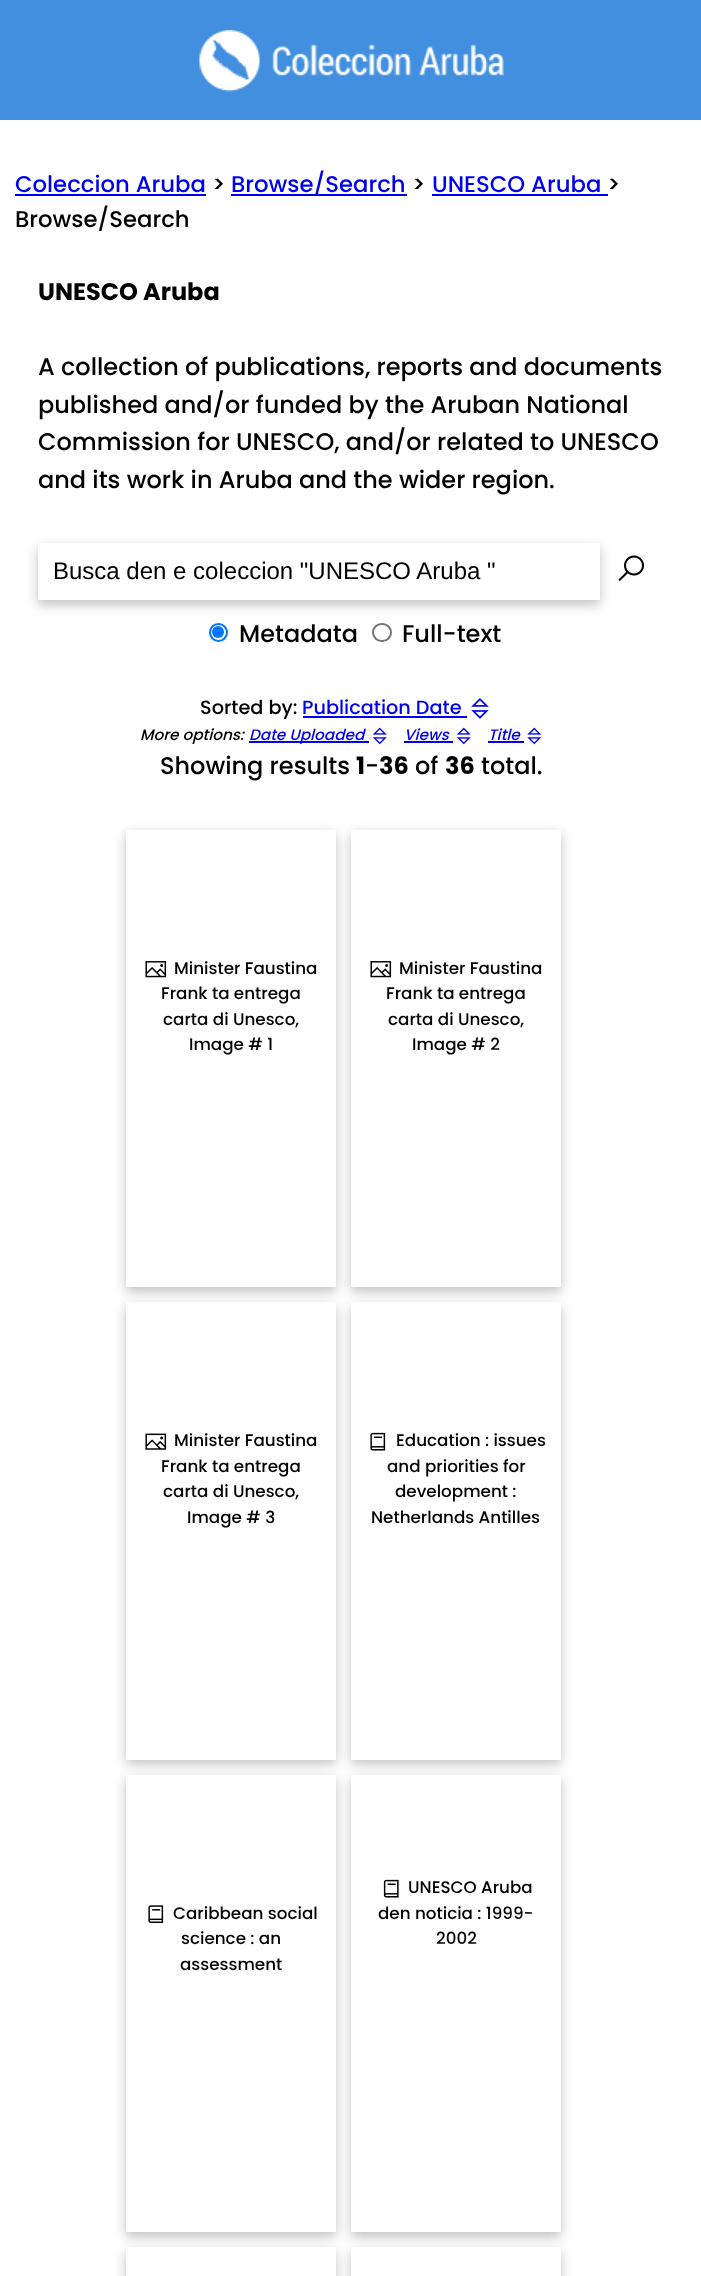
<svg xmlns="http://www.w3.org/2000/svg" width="701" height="2276">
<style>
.a{font:500 22.75px Poppins;fill:#00e}
.b{font:500 22.75px Poppins;fill:#000}
.c{font:bold 24px Poppins;fill:#000}
.d{font:500 24px Poppins;fill:#000}
.e{font:24px Liberation Sans;fill:#000}
.f{font:500 19.25px Poppins;fill:#000}
.g{font:500 19.25px Poppins;fill:#00e}
.h{font:italic 500 15.25px Poppins;fill:#000}
.i{font:italic 500 15.25px Poppins;fill:#00e}
.j{font:500 16.75px Poppins;fill:#000}
</style>
<defs>
<clipPath id="clip1"><path d="M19 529h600v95h-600zm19 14h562v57h-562z" clip-rule="evenodd"/></clipPath>
<clipPath id="clip2"><path d="M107 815h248v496h-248zm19 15h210v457h-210z" clip-rule="evenodd"/></clipPath>
<clipPath id="clip3"><path d="M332 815h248v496h-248zm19 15h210v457h-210z" clip-rule="evenodd"/></clipPath>
<clipPath id="clip4"><path d="M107 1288h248v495h-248zm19 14h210v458h-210z" clip-rule="evenodd"/></clipPath>
<clipPath id="clip5"><path d="M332 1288h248v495h-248zm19 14h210v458h-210z" clip-rule="evenodd"/></clipPath>
<clipPath id="clip6"><path d="M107 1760h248v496h-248zm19 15h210v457h-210z" clip-rule="evenodd"/></clipPath>
<clipPath id="clip7"><path d="M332 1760h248v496h-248zm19 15h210v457h-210z" clip-rule="evenodd"/></clipPath>
<clipPath id="clip8"><path d="M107 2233h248v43h-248zm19 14h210v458h-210z" clip-rule="evenodd"/></clipPath>
<clipPath id="clip9"><path d="M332 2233h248v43h-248zm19 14h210v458h-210z" clip-rule="evenodd"/></clipPath>
</defs>
<rect width="100%" height="100%" fill="#fff"/>
<path fill="#418fde" d="M0 0h701v120H0z"/>
<image href="1.png" x="199" y="30" width="305" height="62"/>
<path fill="#00e" d="M15 194h191v2H15z"/>
<path fill="#00e" d="M231 194h176v2H231z"/>
<path fill="#00e" d="M432 194h176v2H432z"/>
<g clip-path="url(#clip1)">
<path fill="#0000003d" filter="blur(6px)" d="M38 548h562v57H38z"/>
</g>
<image href="2.png" x="618" y="555" width="26" height="27"/>
<circle fill="none" stroke="#0075ff" stroke-width="2" cx="218.5" cy="632.5" r="8.5"/>
<circle fill="#0075ff" cx="218" cy="632" r="6"/>
<rect fill="none" stroke="#767676" stroke-width="2" x="373" y="624" width="18" height="17" rx="8.5"/>
<path fill="#00e" d="M303 716h164v2H303z"/>
<image href="3.png" x="471" y="698" width="18" height="21"/>
<path fill="#00e" d="M249 741h120v2H249z"/>
<image href="4.png" x="372" y="727" width="15" height="18"/>
<path fill="#00e" d="M404 741h49v2H404z"/>
<image href="4.png" x="456" y="727" width="15" height="18"/>
<path fill="#00e" d="M488 741h36v2H488z"/>
<image href="5.png" x="527" y="727" width="15" height="18"/>
<g clip-path="url(#clip2)">
<path fill="#0000003d" filter="blur(6px)" d="M126 834h210v458H126z"/>
</g>
<image href="6.png" x="145" y="961" width="22" height="17"/>
<g clip-path="url(#clip3)">
<path fill="#0000003d" filter="blur(6px)" d="M351 834h210v458H351z"/>
</g>
<image href="6.png" x="370" y="961" width="22" height="17"/>
<g clip-path="url(#clip4)">
<path fill="#0000003d" filter="blur(6px)" d="M126 1307h210v457H126z"/>
</g>
<image href="7.png" x="145" y="1433" width="22" height="17"/>
<g clip-path="url(#clip5)">
<path fill="#0000003d" filter="blur(6px)" d="M351 1307h210v457H351z"/>
</g>
<image href="8.png" x="370" y="1432" width="16" height="19"/>
<g clip-path="url(#clip6)">
<path fill="#0000003d" filter="blur(6px)" d="M126 1779h210v458H126z"/>
</g>
<image href="9.png" x="148" y="1905" width="16" height="18"/>
<g clip-path="url(#clip7)">
<path fill="#0000003d" filter="blur(6px)" d="M351 1779h210v458H351z"/>
</g>
<image href="10.png" x="383" y="1879" width="16" height="19"/>
<g clip-path="url(#clip8)">
<path fill="#0000003d" filter="blur(6px)" d="M126 2252h210v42H126z"/>
</g>
<g clip-path="url(#clip9)">
<path fill="#0000003d" filter="blur(6px)" d="M351 2252h210v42H351z"/>
</g>
<text class="a" x="15" y="192">Coleccion Aruba</text>
<text class="b" x="212" y="192">&gt;</text>
<text class="a" x="231" y="192">Browse/Search</text>
<text class="b" x="412" y="192">&gt;</text>
<text class="a" x="432" y="192">UNESCO Aruba</text>
<text class="b" x="607" y="192">&gt;</text>
<text class="b" x="15" y="227">Browse/Search</text>
<text class="c" x="38" y="300">UNESCO Aruba</text>
<text class="d" x="38" y="375">A collection of publications, reports and documents</text>
<text class="d" x="38" y="413">published and/or funded by the Aruban National</text>
<text class="d" x="38" y="450">Commission for UNESCO, and/or related to UNESCO</text>
<text class="d" x="38" y="488">and its work in Aruba and the wider region.</text>
<text class="e" x="53" y="579">Busca den e coleccion "UNESCO Aruba "</text>
<text class="d" x="239" y="642">Metadata</text>
<text class="d" x="402" y="642">Full-text</text>
<text class="f" x="200" y="714">Sorted by:</text>
<text class="g" x="302" y="714">Publication Date</text>
<text class="h" x="140" y="740">More options:</text>
<text class="i" x="249" y="740">Date Uploaded</text>
<text class="i" x="404" y="740">Views</text>
<text class="i" x="488" y="740">Title</text>
<text class="d" x="160" y="774">Showing results</text>
<text class="c" x="356" y="774">1</text>
<text class="d" x="365" y="774">-</text>
<text class="c" x="379" y="774">36</text>
<text class="d" x="415" y="774">of</text>
<text class="c" x="445" y="774">36</text>
<text class="d" x="481" y="774">total.</text>
<text class="j" x="174" y="974">Minister Faustina</text>
<text class="j" x="161" y="999">Frank ta entrega</text>
<text class="j" x="163" y="1025">carta di Unesco,</text>
<text class="j" x="189" y="1050">Image # 1</text>
<text class="j" x="399" y="974">Minister Faustina</text>
<text class="j" x="386" y="999">Frank ta entrega</text>
<text class="j" x="388" y="1025">carta di Unesco,</text>
<text class="j" x="412" y="1050">Image # 2</text>
<text class="j" x="174" y="1446">Minister Faustina</text>
<text class="j" x="161" y="1472">Frank ta entrega</text>
<text class="j" x="163" y="1497">carta di Unesco,</text>
<text class="j" x="187" y="1523">Image # 3</text>
<text class="j" x="396" y="1446">Education : issues</text>
<text class="j" x="387" y="1472">and priorities for</text>
<text class="j" x="395" y="1497">development :</text>
<text class="j" x="371" y="1523">Netherlands Antilles</text>
<text class="j" x="173" y="1919">Caribbean social</text>
<text class="j" x="181" y="1944">science : an</text>
<text class="j" x="180" y="1970">assessment</text>
<text class="j" x="408" y="1893">UNESCO Aruba</text>
<text class="j" x="378" y="1919">den noticia : 1999-</text>
<text class="j" x="436" y="1944">2002</text>
</svg>
